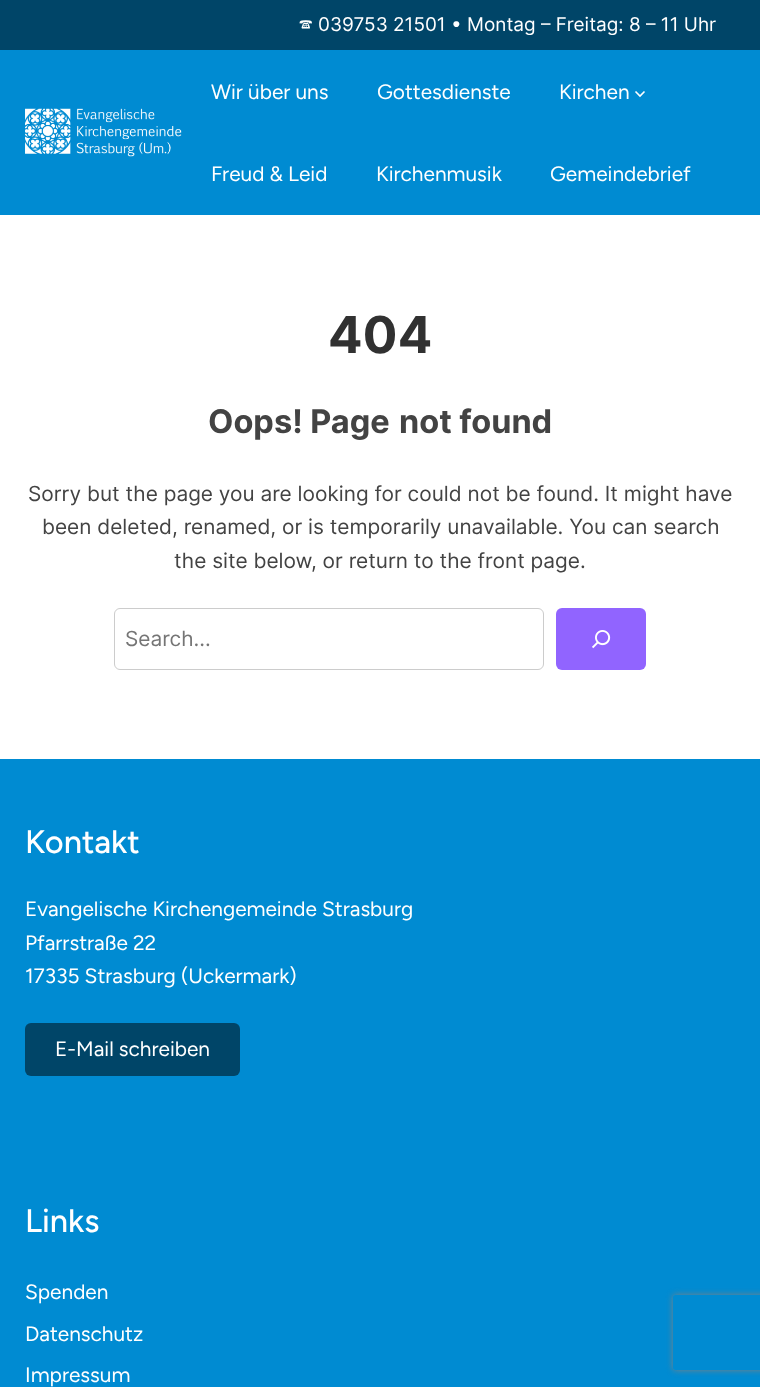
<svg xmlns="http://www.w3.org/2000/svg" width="760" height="1387">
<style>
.a{font:19px FreeSerif;fill:#fff}
.b{font:19px Inter;fill:#fff}
.c{font:20.85px Figtree;fill:#fff}
.d{font:bold 51px Inter;fill:#313131}
.e{font:bold 32.5px Inter;fill:#434343}
.f{font:20.85px Inter;fill:#434343}
.g{font:20.85px Inter;fill:#757575}
.h{font:500 32.5px Figtree;fill:#fff}
</style>
<defs>
<clipPath id="clip1"><path d="M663 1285h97v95h-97zm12.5 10h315c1.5 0 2.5 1 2.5 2.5v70c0 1.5-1 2.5-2.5 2.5h-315c-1.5 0-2.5-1-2.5-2.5v-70c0-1.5 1-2.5 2.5-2.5z" clip-rule="evenodd"/></clipPath>
</defs>
<rect width="100%" height="100%" fill="#fff"/>
<path fill="#004568" d="M0 0h760v50H0z"/>
<path fill="#008bd2" d="M0 50h760v165H0z"/>
<image href="1.png" x="25" y="108" width="157" height="49"/>
<path fill="none" stroke="#fff" stroke-width="1.6" d="M635.5 91.5l4.5 4.5l4.5-4.5"/>
<rect fill="none" stroke="#ccc" x="114.5" y="608.5" width="429" height="61" rx="5.5"/>
<rect fill="#9164ff" x="556" y="608" width="90" height="62" rx="6"/>
<image href="2.png" x="592" y="630" width="19" height="19"/>
<path fill="#008bd2" d="M0 759h760v628H0z"/>
<rect fill="#004568" x="25" y="1023" width="215" height="53" rx="6"/>
<g clip-path="url(#clip1)">
<rect fill="#808080" filter="blur(3px)" x="673" y="1295" width="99" height="75" rx="2.5"/>
</g>
<text class="a" x="299" y="31">🕿</text>
<text class="b" x="318" y="31">039753 21501 • Montag – Freitag: 8 – 11 Uhr</text>
<text class="c" x="211" y="99">Wir über uns</text>
<text class="c" x="377" y="99">Gottesdienste</text>
<text class="c" x="559" y="99">Kirchen</text>
<text class="c" x="211" y="181">Freud &amp; Leid</text>
<text class="c" x="376" y="181">Kirchenmusik</text>
<text class="c" x="550" y="181">Gemeindebrief</text>
<text class="d" x="328" y="353">404</text>
<text class="e" x="208" y="433">Oops! Page</text>
<text class="e" x="399" y="433">not found</text>
<text class="f" x="28" y="501">Sorry but the page you are looking for could not be found. It might have</text>
<text class="f" x="42" y="534">been deleted, renamed, or is temporarily unavailable. You can search</text>
<text class="f" x="174" y="568">the site below, or return to the front page.</text>
<text class="g" x="125" y="646">Search...</text>
<text class="h" x="25" y="853">Kontakt</text>
<text class="c" x="25" y="916">Evangelische Kirchengemeinde Strasburg</text>
<text class="c" x="25" y="950">Pfarrstraße 22</text>
<text class="c" x="25" y="983">17335 Strasburg (Uckermark)</text>
<text class="c" x="55" y="1056">E-Mail schreiben</text>
<text class="h" x="25" y="1232">Links</text>
<text class="c" x="25" y="1299">Spenden</text>
<text class="c" x="25" y="1341">Datenschutz</text>
<text class="c" x="25" y="1382">Impressum</text>
</svg>
